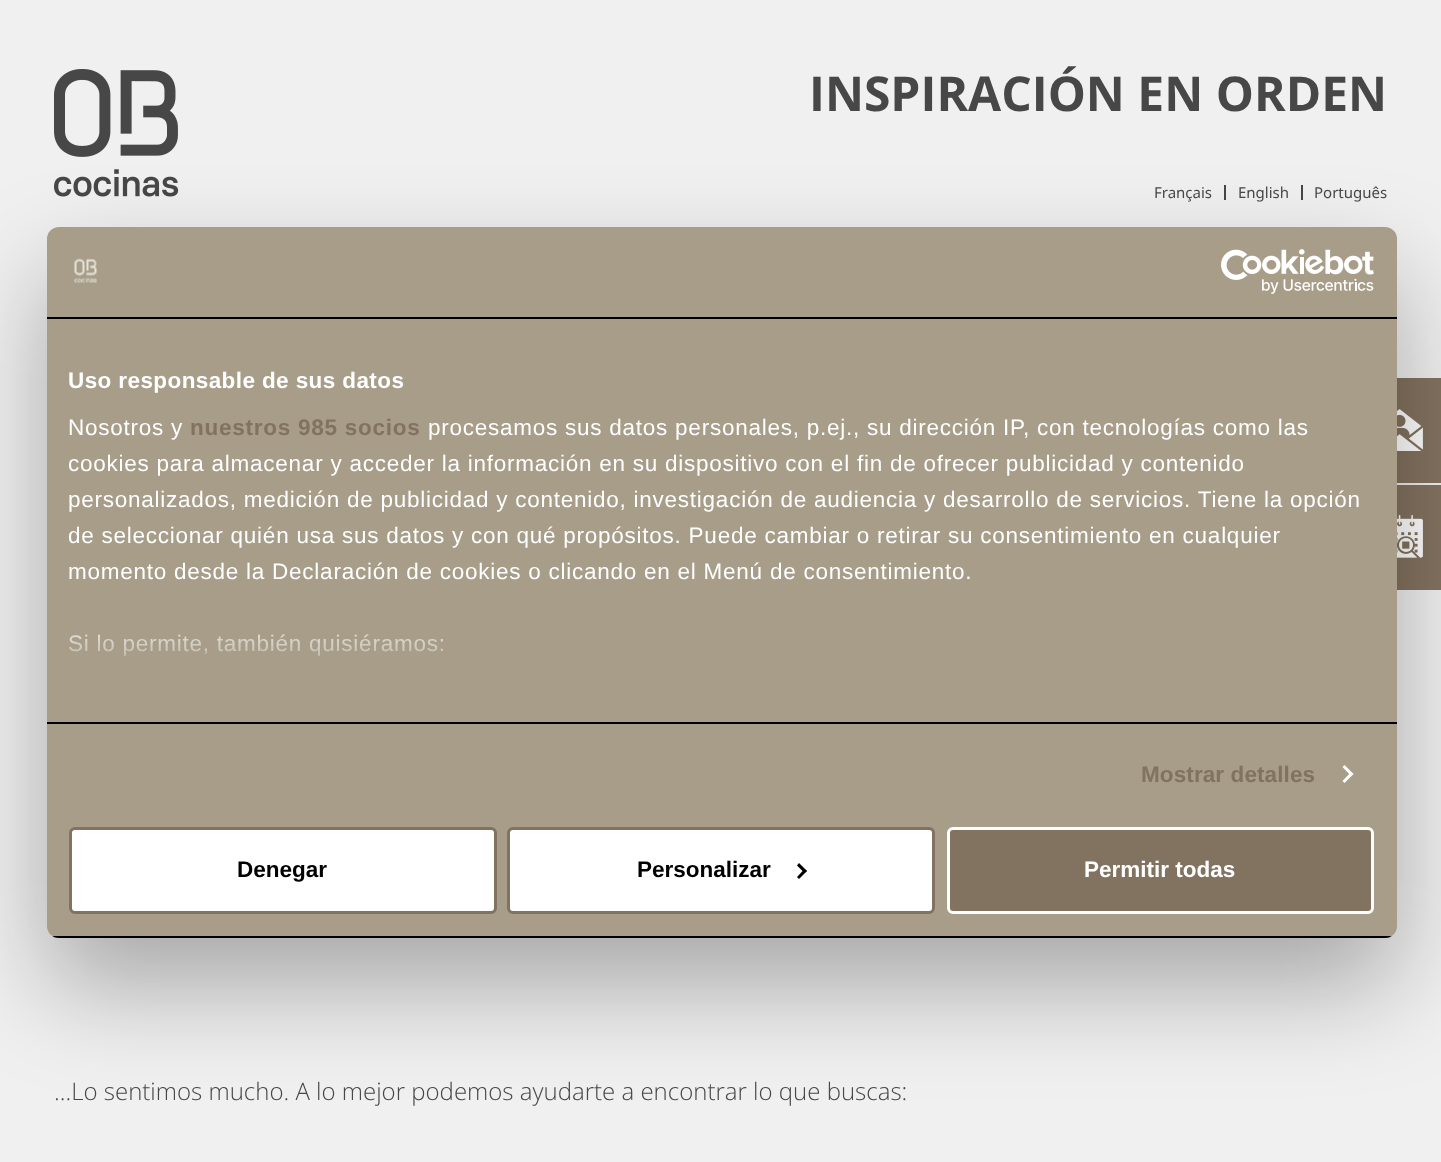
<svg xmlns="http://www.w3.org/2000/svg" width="1441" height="1162">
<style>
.a{font:bold 48px Open Sans;fill:#474747}
.b{font:15px Noto Sans;fill:#474747}
.c{font:300 24px Open Sans;fill:#474747}
.d{font:bold 22.5px Liberation Sans;letter-spacing:0.4px;fill:#fff}
.e{font:22.5px Liberation Sans;letter-spacing:0.75px;fill:#fff}
.f{font:bold 22.5px Liberation Sans;letter-spacing:0.75px;fill:#827361}
.g{font:bold 22.5px Liberation Sans;letter-spacing:0.1px;fill:#827361}
.h{font:bold 22.5px Liberation Sans;fill:#000}
.i{font:bold 22.5px Liberation Sans;fill:#fff}
</style>
<defs>
<clipPath id="clip1"><rect x="47" y="227" width="1350" height="711" rx="12"/></clipPath>
<linearGradient id="g1" gradientUnits="userSpaceOnUse" x1="712" y1="722" x2="712" y2="609"><stop offset="0" stop-color="#a79d89"/><stop offset="0.5" stop-color="#a79d89" stop-opacity="0.8"/><stop offset="1" stop-color="#a79d89" stop-opacity="0"/></linearGradient>
</defs>
<rect width="100%" height="100%" fill="#f0f0f0"/>
<image href="1.png" x="54" y="69" width="125" height="128"/>
<path fill="#474747" d="M1224 185h2v15H1224z"/>
<path fill="#474747" d="M1301 185h2v15H1301z"/>
<path fill="#847360" d="M1397 378h44v105H1397z"/>
<image href="2.png" x="1397" y="409" width="26" height="42"/>
<path fill="#847360" d="M1397 485h44v105H1397z"/>
<image href="3.png" x="1397" y="515" width="26" height="43"/>
<rect fill="#0000004d" filter="blur(51px)" x="47" y="275" width="1350" height="711" rx="12"/>
<rect fill="#a79d89" x="47" y="227" width="1350" height="711" rx="12"/>
<path fill="#000" d="M47 317h1350v2H47z"/>
<image href="4.png" x="74" y="258" width="23" height="25"/>
<image href="5.png" x="1221" y="249" width="153" height="45"/>
<path fill="#000" d="M47 722h1350v2H47z"/>
<path fill="#fff" d="M1344.5 765l9 9l-2.5 2l-8.5-9z"/>
<path fill="#fff" d="M1351 772l2.5 2l-9 9l-2-2z"/>
<g clip-path="url(#clip1)">
<path fill="#000" d="M47 936h1350v2H47z"/>
</g>
<rect fill="#fff" stroke="#827361" stroke-width="3" x="70.5" y="828.5" width="425" height="84" rx="4.5"/>
<rect fill="#fff" stroke="#827361" stroke-width="3" x="508.5" y="828.5" width="425" height="84" rx="4.5"/>
<path fill="#000" d="M799 863l8 8l-2.5 2l-7.5-7.5z"/>
<path fill="#000" d="M804.5 869l2.5 2l-8 8l-2-2z"/>
<rect fill="#827361" stroke="#fff" stroke-width="3" x="948.5" y="828.5" width="424" height="84" rx="4.5"/>
<text class="a" x="809" y="111">INSPIRACIÓN EN ORDEN</text>
<text class="b" x="1154" y="198">Français</text>
<text class="b" x="1238" y="198">English</text>
<text class="b" x="1314" y="198">Português</text>
<text class="c" x="54" y="1100">...Lo sentimos mucho. A lo mejor podemos ayudarte a encontrar lo que buscas:</text>
<text class="d" x="68" y="388">Uso responsable de sus datos</text>
<text class="e" x="68" y="435">Nosotros y</text>
<text class="f" x="190" y="435">nuestros 985 socios</text>
<text class="e" x="428" y="435">procesamos sus datos personales, p.ej., su dirección IP, con tecnologías como las</text>
<text class="e" x="68" y="471">cookies para almacenar y acceder la información en su dispositivo con el fin de ofrecer publicidad y contenido</text>
<text class="e" x="68" y="507">personalizados, medición de publicidad y contenido, investigación de audiencia y desarrollo de servicios. Tiene la opción</text>
<text class="e" x="68" y="543">de seleccionar quién usa sus datos y con qué propósitos. Puede cambiar o retirar su consentimiento en cualquier</text>
<text class="e" x="68" y="579">momento desde la Declaración de cookies o clicando en el Menú de consentimiento.</text>
<text class="e" x="68" y="651">Si lo permite, también quisiéramos:</text>
<path fill="url(#g1)" d="M69 634h375v22H69z"/>
<text class="g" x="1141" y="782">Mostrar detalles</text>
<text class="h" x="237" y="877">Denegar</text>
<text class="h" x="637" y="877">Personalizar</text>
<text class="i" x="1084" y="877">Permitir todas</text>
</svg>
